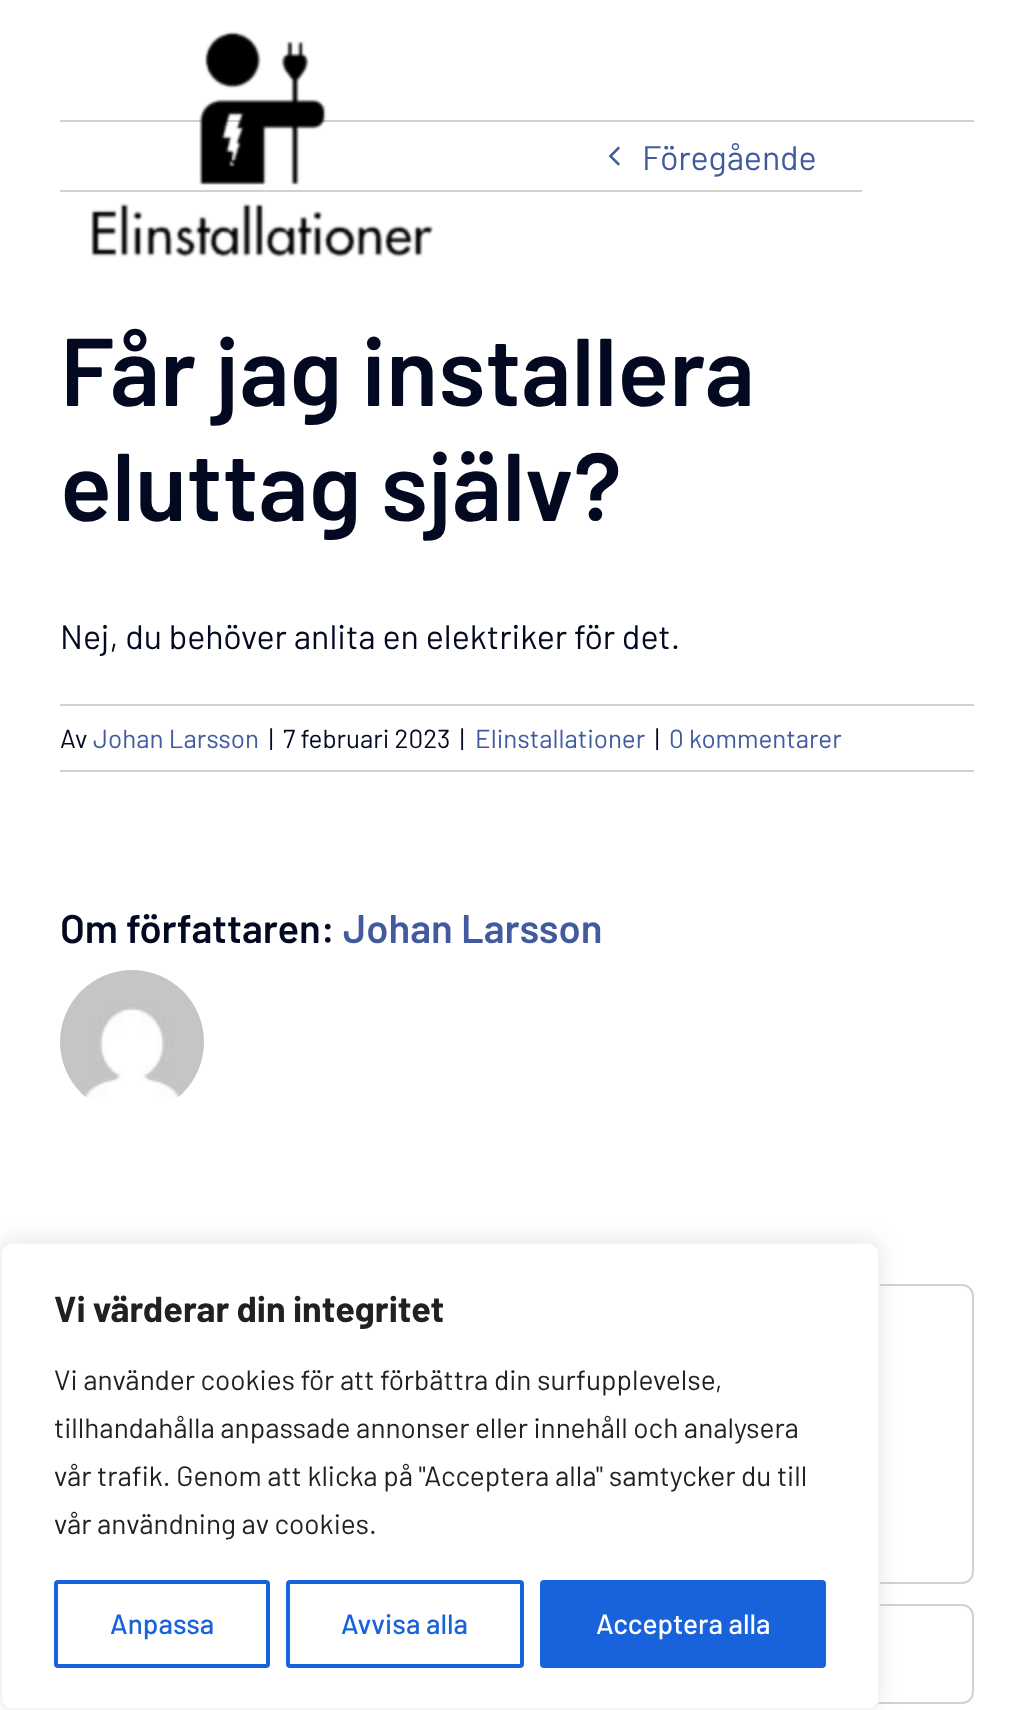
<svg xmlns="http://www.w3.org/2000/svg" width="1034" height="1710">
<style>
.a{font:34px Barlow;fill:#425a9e}
.b{font:600 96px Barlow;fill:#040922}
.c{font:34px Barlow;fill:#040922}
.d{font:26px Barlow;fill:#040922}
.e{font:26px Barlow;fill:#425a9e}
.f{font:600 40px Barlow;fill:#040922}
.g{font:600 40px Barlow;fill:#425a9e}
.h{font:bold 36px Barlow;fill:#212121}
.i{font:28px Barlow;fill:#212121}
.j{font:500 28px Barlow;fill:#1863dc}
.k{font:500 28px Barlow;fill:#fff}
</style>
<rect width="100%" height="100%" fill="#fff"/>
<path fill="#d1d1d1" d="M60 120h914v2H60z"/>
<path fill="#d1d1d1" d="M60 190h802v2H60z"/>
<image href="1.png" x="91" y="31" width="343" height="227"/>
<image href="2.png" x="608" y="146" width="12" height="20"/>
<path fill="#d1d1d1" d="M60 704h914v2H60z"/>
<path fill="#d1d1d1" d="M60 770h914v2H60z"/>
<image href="3.png" x="60" y="970" width="144" height="128"/>
<rect fill="none" stroke="#d1d1d1" stroke-width="2" x="61" y="1285" width="912" height="298" rx="11"/>
<rect fill="none" stroke="#d1d1d1" stroke-width="2" x="61" y="1605" width="912" height="98" rx="11"/>
<rect fill="#acabab4d" filter="blur(10px)" y="1240" width="880" height="468" rx="12"/>
<rect fill="#fff" stroke="#f4f4f4" stroke-width="2" x="1" y="1243" width="878" height="466" rx="11"/>
<rect fill="none" stroke="#1863dc" stroke-width="4" x="56" y="1582" width="212" height="84" rx="2"/>
<rect fill="none" stroke="#1863dc" stroke-width="4" x="288" y="1582" width="234" height="84" rx="2"/>
<rect fill="#1863dc" stroke="#1863dc" stroke-width="4" x="542" y="1582" width="282" height="84" rx="2"/>
<text class="a" x="642" y="170">Föregående</text>
<text class="b" x="60" y="406">Får jag installera</text>
<text class="b" x="60" y="521">eluttag själv?</text>
<text class="c" x="60" y="649">Nej, du behöver anlita en elektriker för det.</text>
<text class="d" x="60" y="748">Av</text>
<text class="e" x="93" y="748">Johan Larsson</text>
<text class="d" x="269" y="748">|</text>
<text class="d" x="283" y="748">7 februari 2023</text>
<text class="d" x="460" y="748">|</text>
<text class="e" x="475" y="748">Elinstallationer</text>
<text class="d" x="655" y="748">|</text>
<text class="e" x="669" y="748">0 kommentarer</text>
<text class="f" x="60" y="943">Om författaren:</text>
<text class="g" x="343" y="943">Johan Larsson</text>
<text class="h" x="54" y="1322">Vi värderar din integritet</text>
<text class="i" x="54" y="1390">Vi använder cookies för att förbättra din surfupplevelse,</text>
<text class="i" x="54" y="1438">tillhandahålla anpassade annonser eller innehåll och analysera</text>
<text class="i" x="54" y="1486">vår trafik. Genom att klicka på "Acceptera alla" samtycker du till</text>
<text class="i" x="54" y="1534">vår användning av cookies.</text>
<text class="j" x="110" y="1634">Anpassa</text>
<text class="j" x="341" y="1634">Avvisa alla</text>
<text class="k" x="596" y="1634">Acceptera alla</text>
</svg>
